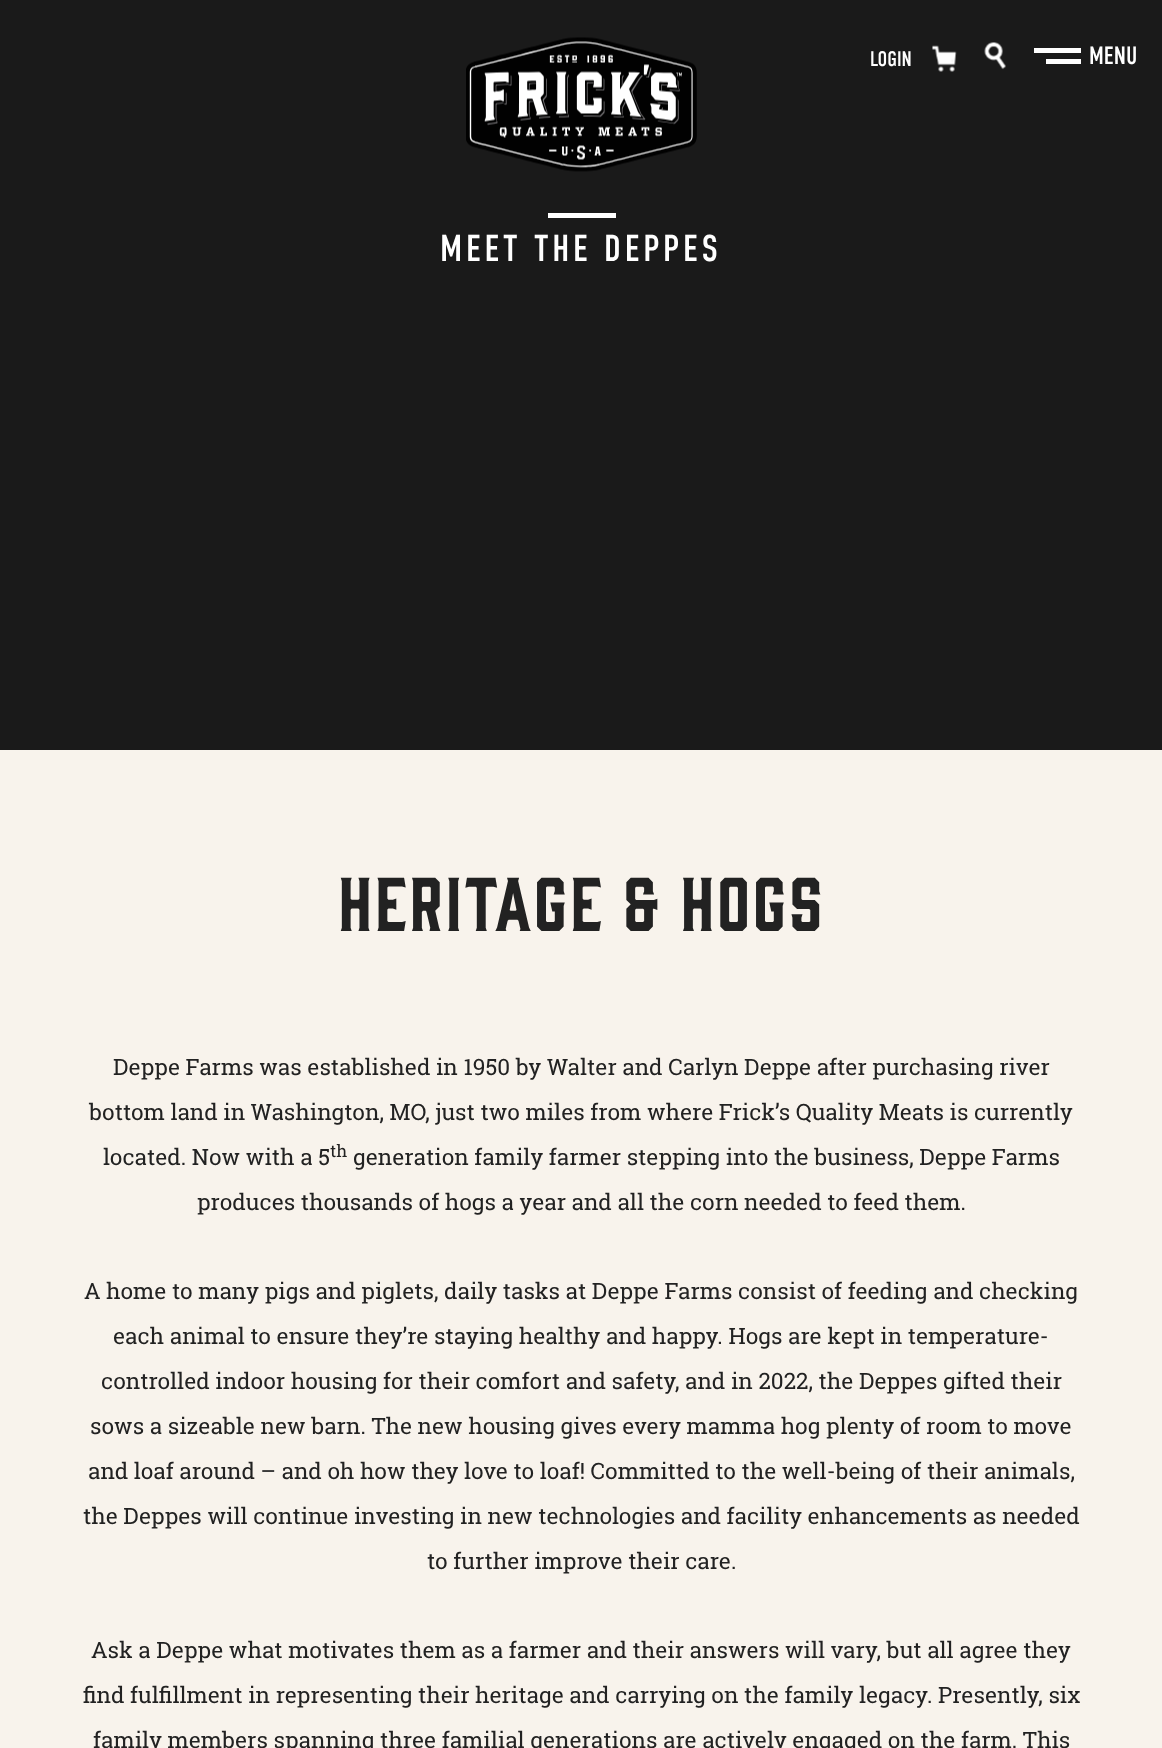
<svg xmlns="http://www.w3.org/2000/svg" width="1162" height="1748">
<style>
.a{font:21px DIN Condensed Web;fill:#fff}
.b{font:25px DIN Condensed Web;fill:#fff}
.c{font:37.5px DIN Condensed Web;letter-spacing:3.75px;fill:#fff}
.d{font:70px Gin;letter-spacing:2.5px;fill:#222}
.e{font:22.5px Roboto Slab;fill:#222}
.f{font:17px Roboto Slab;fill:#222}
</style>
<rect width="100%" height="100%" fill="#1a1a1a"/>
<image href="1.png" x="466" y="37" width="231" height="135"/>
<image href="2.png" x="932" y="45" width="25" height="27"/>
<image href="3.png" x="984" y="42" width="22" height="28"/>
<path fill="#fff" d="M1034 48h47v5H1034z"/>
<path fill="#fff" d="M1046 59h35v5H1046z"/>
<path fill="#fff" d="M548 213h68v5H548z"/>
<path fill="#f8f3ec" d="M0 750h1162v998H0z"/>
<text class="a" x="870" y="66">LOGIN</text>
<text class="b" x="1089" y="64">MENU</text>
<text class="c" x="440" y="261">MEET THE DEPPES</text>
<text class="d" x="338" y="931">Heritage &amp; Hogs</text>
<text class="e" x="113" y="1075">Deppe Farms was established in 1950 by Walter and Carlyn Deppe after purchasing river</text>
<text class="e" x="89" y="1120">bottom land in Washington, MO, just two miles from where Frick’s Quality Meats is currently</text>
<text class="e" x="103" y="1165">located. Now with a 5</text>
<text class="f" x="330" y="1157">th</text>
<text class="e" x="353" y="1165">generation family farmer stepping into the business, Deppe Farms</text>
<text class="e" x="197" y="1210">produces thousands of hogs a year and all the corn needed to feed them.</text>
<text class="e" x="84" y="1299">A home to many pigs and piglets, daily tasks at Deppe Farms consist of feeding and checking</text>
<text class="e" x="113" y="1344">each animal to ensure they’re staying healthy and happy. Hogs are kept in temperature-</text>
<text class="e" x="101" y="1389">controlled indoor housing for their comfort and safety, and in 2022, the Deppes gifted their</text>
<text class="e" x="90" y="1434">sows a sizeable new barn. The new housing gives every mamma hog plenty of room to move</text>
<text class="e" x="88" y="1479">and loaf around – and oh how they love to loaf! Committed to the well-being of their animals,</text>
<text class="e" x="83" y="1524">the Deppes will continue investing in new technologies and facility enhancements as needed</text>
<text class="e" x="427" y="1569">to further improve their care.</text>
<text class="e" x="91" y="1658">Ask a Deppe what motivates them as a farmer and their answers will vary, but all agree they</text>
<text class="e" x="83" y="1703">find fulfillment in representing their heritage and carrying on the family legacy. Presently, six</text>
<text class="e" x="93" y="1748">family members spanning three familial generations are actively engaged on the farm. This</text>
</svg>
